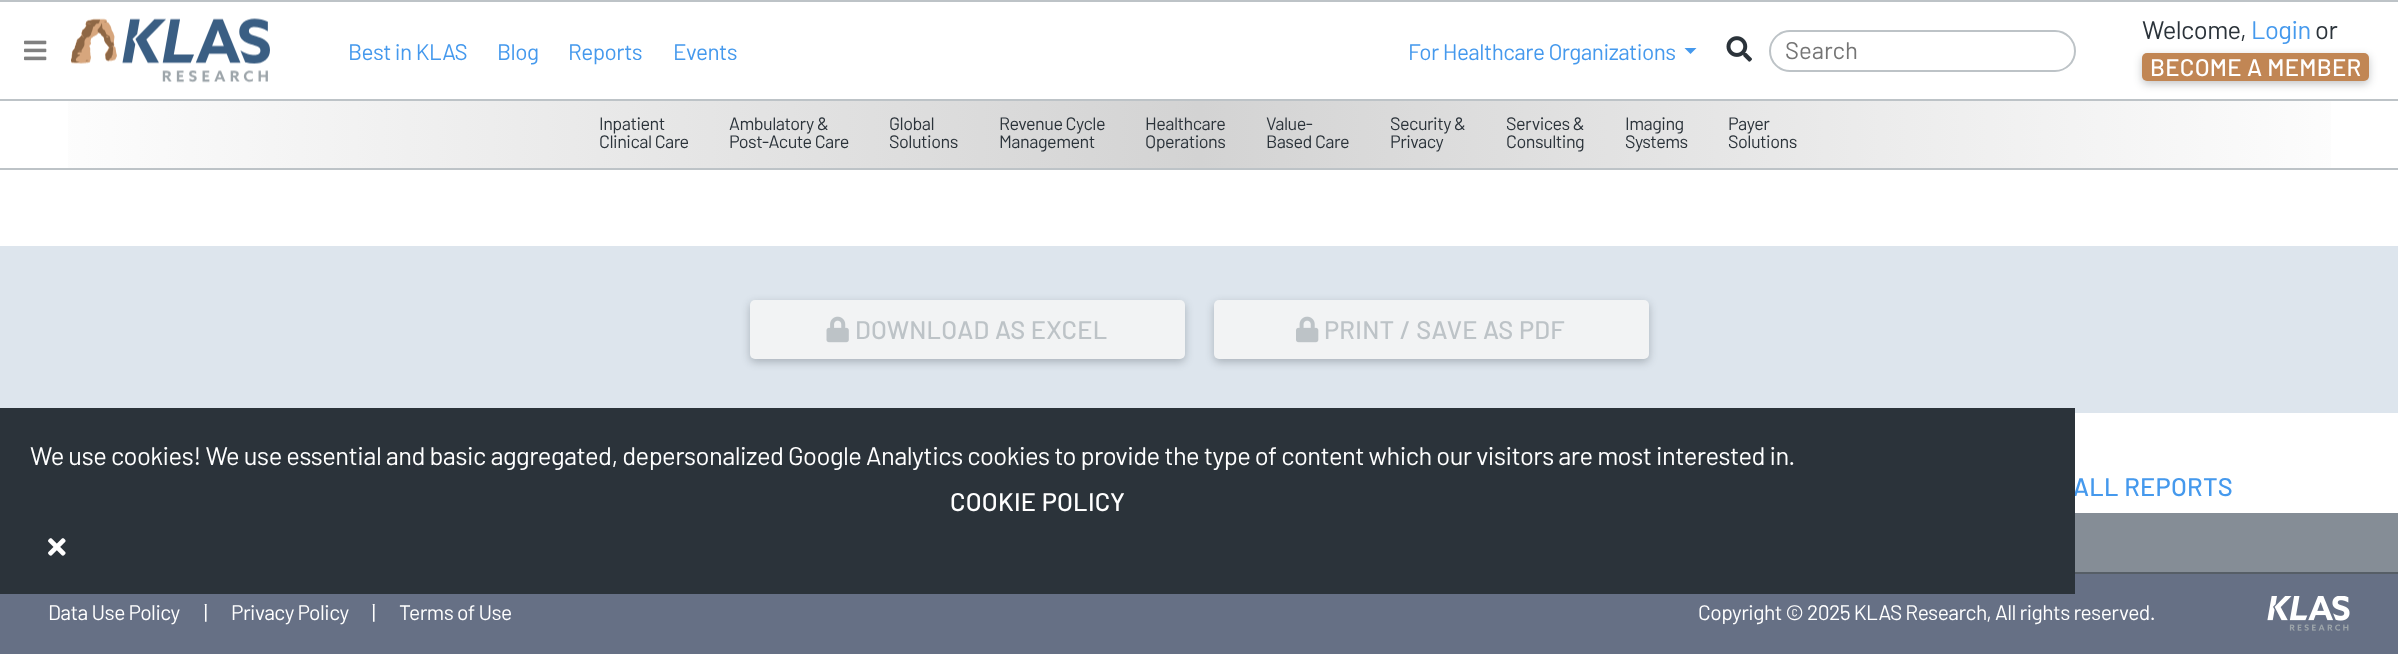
<svg xmlns="http://www.w3.org/2000/svg" width="2398" height="654">
<style>
.a{font:22.5px Barlow;letter-spacing:-0.51px;fill:#4599ed}
.b{font:24px Barlow;fill:#757575}
.c{font:25.5px Barlow;letter-spacing:-0.51px;fill:#2b333a}
.d{font:25.5px Barlow;letter-spacing:-0.51px;fill:#4599ed}
.e{font:500 24px Barlow;letter-spacing:0.25px;fill:#fff}
.f{font:18px Barlow;letter-spacing:-0.51px;fill:#2b333a}
.g{font:500 25.5px Barlow;letter-spacing:0.25px;fill:#bdc3c7}
.h{font:500 25.5px Barlow;letter-spacing:0.25px;fill:#4599ed}
.i{font:500 25.5px Barlow;letter-spacing:0.25px;fill:#fff}
.j{font:25.5px Barlow;letter-spacing:-0.51px;fill:#fff}
.k{font:21px Barlow;letter-spacing:-0.51px;fill:#fff}
</style>
<defs>
<linearGradient id="g1" gradientUnits="userSpaceOnUse" x1="0" y1="135" x2="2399" y2="135"><stop offset="0" stop-color="#fff"/><stop offset="0.5" stop-color="#d3d3d3"/><stop offset="1" stop-color="#fff"/></linearGradient>
</defs>
<rect width="100%" height="100%" fill="#fff"/>
<path fill="#bdc3c7" d="M0 0h2398v2H0z"/>
<path fill="#bdc3c7" d="M0 99h2398v2H0z"/>
<image href="1.png" x="24" y="40" width="23" height="21"/>
<image href="2.png" x="71" y="18" width="199" height="65"/>
<path fill="#4599ed" d="M1684.5 48h12l-6 6z"/>
<image href="3.png" x="1726" y="36" width="26" height="26"/>
<rect fill="none" stroke="#bdc3c7" stroke-width="2" x="1770" y="31" width="305" height="40" rx="20"/>
<rect fill="#10182040" filter="blur(4px)" x="2142" y="56" width="227" height="28" rx="5"/>
<rect fill="#c18654" x="2142" y="53" width="227" height="28" rx="5"/>
<path fill="url(#g1)" d="M68 101h2263v67H68z"/>
<path fill="#bdc3c7" d="M0 168h2398v2H0z"/>
<path fill="#dde5ed" d="M0 246h2398v167H0z"/>
<rect fill="#10182040" filter="blur(4px)" x="750" y="303" width="435" height="59" rx="5"/>
<rect fill="#f2f3f4" x="750" y="300" width="435" height="59" rx="5"/>
<image href="4.png" x="826" y="316" width="23" height="27"/>
<rect fill="#10182040" filter="blur(4px)" x="1214" y="303" width="435" height="59" rx="5"/>
<rect fill="#f2f3f4" x="1214" y="300" width="435" height="59" rx="5"/>
<image href="5.png" x="1296" y="316" width="23" height="27"/>
<path fill="#858d96" d="M2075 513h323v59H2075z"/>
<path fill="#667085" d="M0 574h2398v80H0z"/>
<path fill="#565e66" d="M2075 572h323v2H2075z"/>
<image href="7.png" x="2267" y="596" width="83" height="35"/>
<text class="a" x="348" y="60">Best in KLAS</text>
<text class="a" x="497" y="60">Blog</text>
<text class="a" x="568" y="60">Reports</text>
<text class="a" x="673" y="60">Events</text>
<text class="a" x="1408" y="60">For Healthcare Organizations</text>
<text class="b" x="1785" y="59">Search</text>
<text class="c" x="2142" y="39">Welcome,</text>
<text class="d" x="2251" y="39">Login</text>
<text class="c" x="2315" y="39">or</text>
<text class="e" x="2150" y="76">BECOME A MEMBER</text>
<text class="f" x="599" y="130">Inpatient</text>
<text class="f" x="599" y="148">Clinical Care</text>
<text class="f" x="729" y="130">Ambulatory &amp;</text>
<text class="f" x="729" y="148">Post-Acute Care</text>
<text class="f" x="889" y="130">Global</text>
<text class="f" x="889" y="148">Solutions</text>
<text class="f" x="999" y="130">Revenue Cycle</text>
<text class="f" x="999" y="148">Management</text>
<text class="f" x="1145" y="130">Healthcare</text>
<text class="f" x="1145" y="148">Operations</text>
<text class="f" x="1266" y="130">Value-</text>
<text class="f" x="1266" y="148">Based Care</text>
<text class="f" x="1390" y="130">Security &amp;</text>
<text class="f" x="1390" y="148">Privacy</text>
<text class="f" x="1506" y="130">Services &amp;</text>
<text class="f" x="1506" y="148">Consulting</text>
<text class="f" x="1625" y="130">Imaging</text>
<text class="f" x="1625" y="148">Systems</text>
<text class="f" x="1728" y="130">Payer</text>
<text class="f" x="1728" y="148">Solutions</text>
<text class="g" x="855" y="339">DOWNLOAD AS EXCEL</text>
<text class="g" x="1324" y="339">PRINT / SAVE AS PDF</text>
<text class="h" x="2073" y="496">ALL REPORTS</text>
<path fill="#2b333a" d="M0 408h2075v186H0z"/>
<image href="6.png" x="48" y="538" width="18" height="18"/>
<text class="i" x="950" y="511">COOKIE POLICY</text>
<text class="j" x="30" y="465">We use cookies! We use essential and basic aggregated, depersonalized Google Analytics cookies to provide the type of content which our visitors are most interested in.</text>
<text class="k" x="48" y="620">Data Use Policy</text>
<text class="k" x="204" y="620">|</text>
<text class="k" x="231" y="620">Privacy Policy</text>
<text class="k" x="372" y="620">|</text>
<text class="k" x="399" y="620">Terms of Use</text>
<text class="k" x="1698" y="620">Copyright © 2025 KLAS Research, All rights reserved.</text>
</svg>
